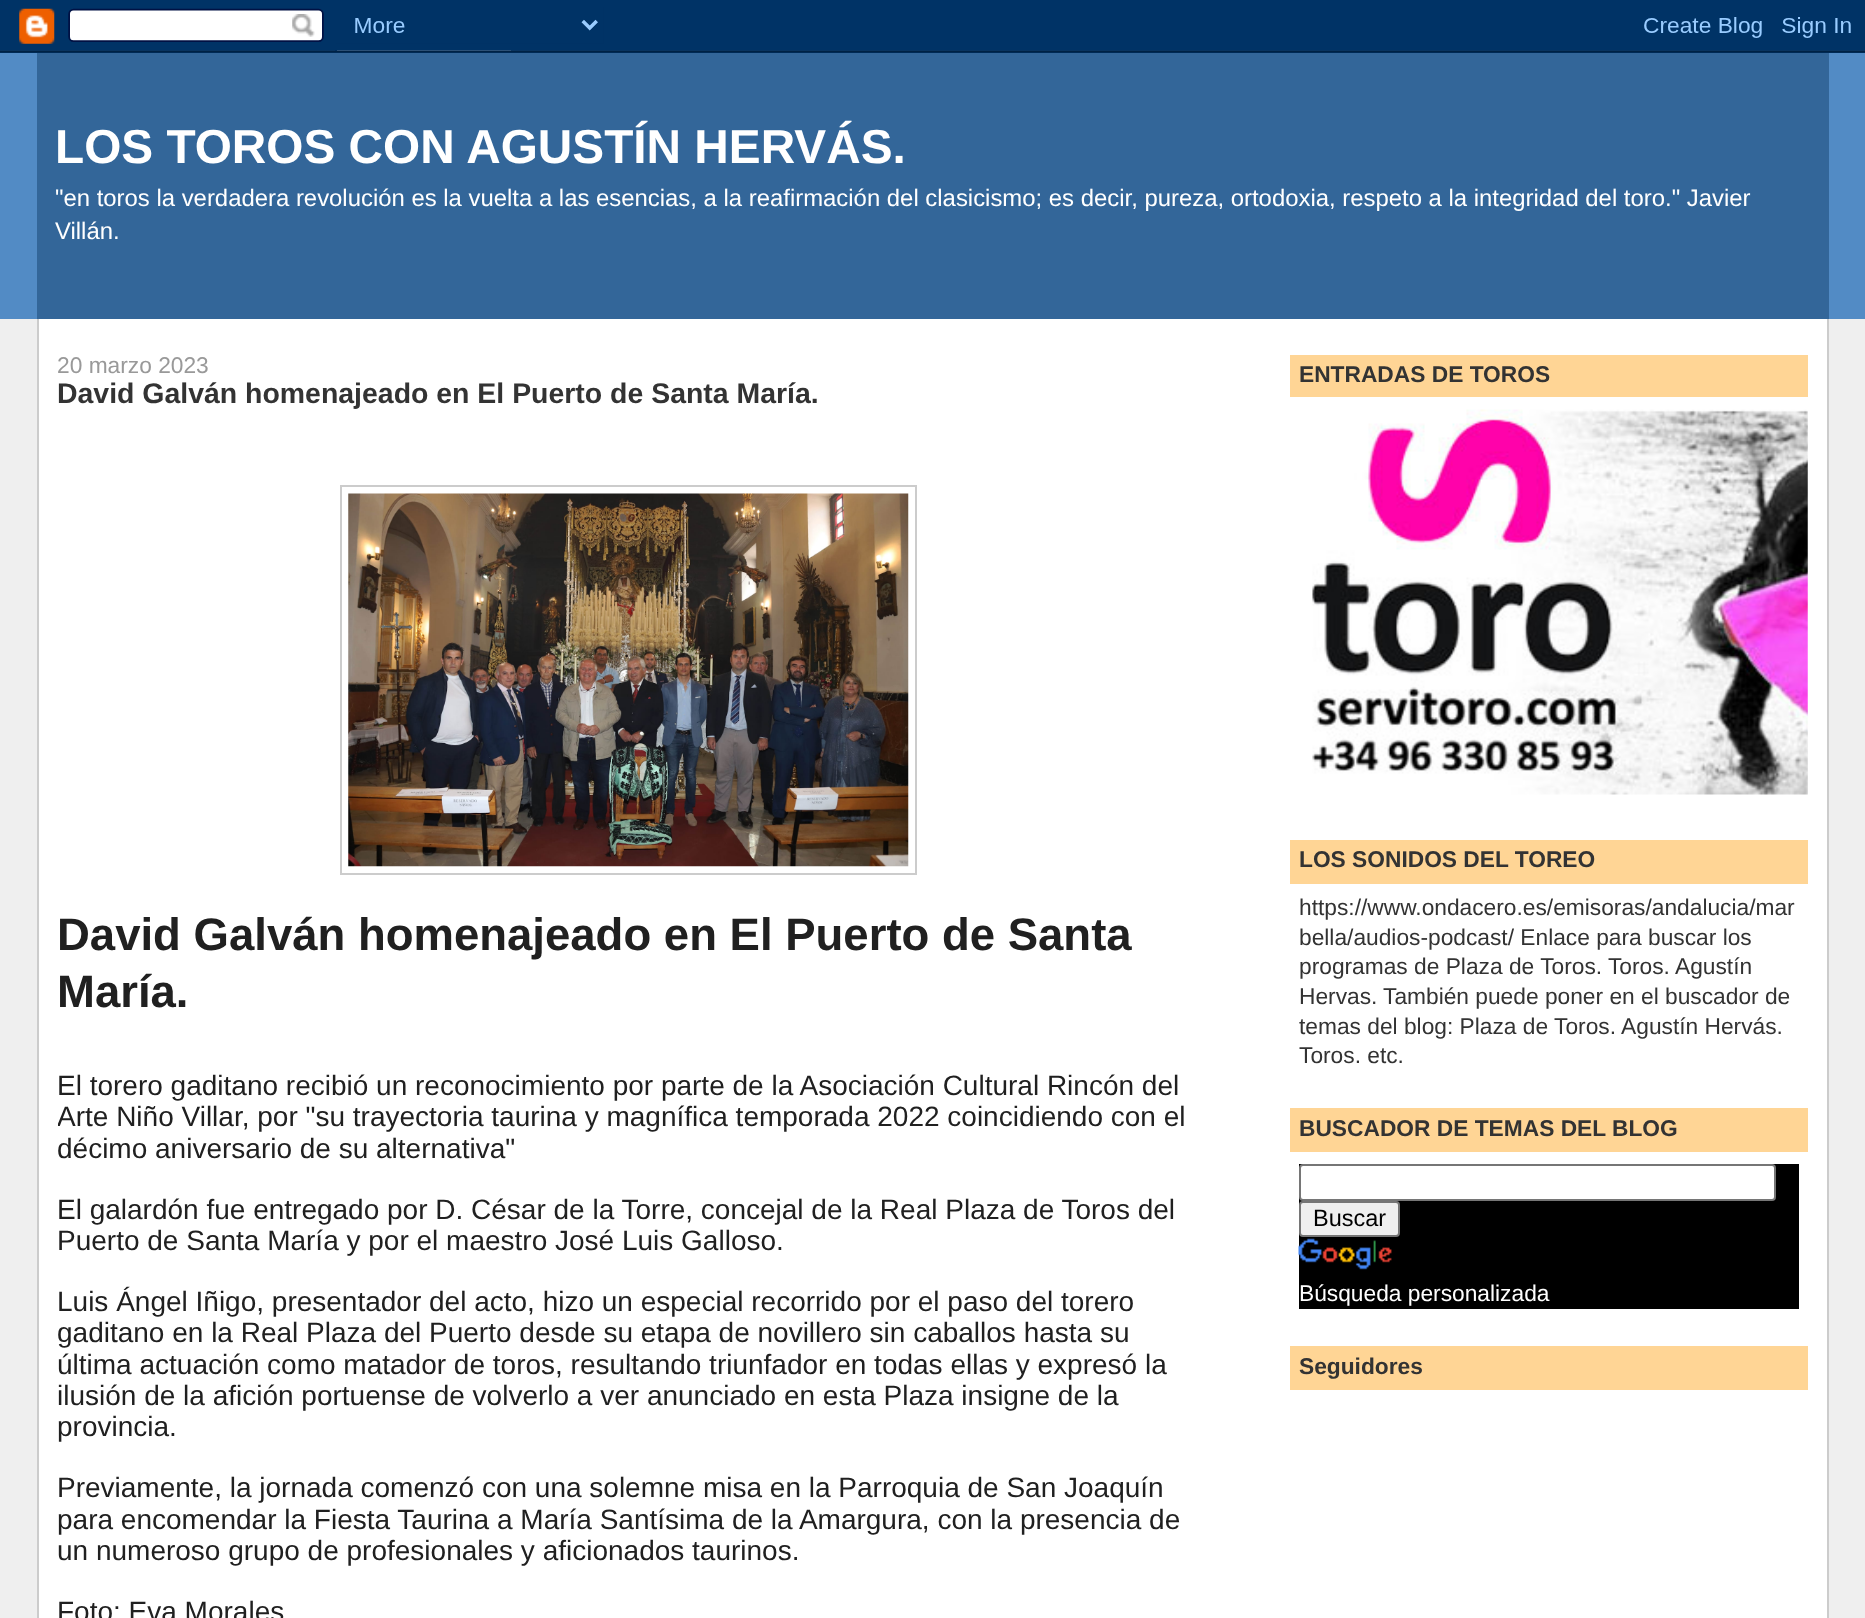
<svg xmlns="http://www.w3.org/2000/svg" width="1865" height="1618">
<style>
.a{font:bold 47.75px Liberation Sans;fill:#fff}
.b{font:23.9px Liberation Sans;fill:#fff}
.c{font:22.75px Liberation Sans;fill:#999}
.d{font:bold 28.45px Liberation Sans;fill:#333}
.e{font:bold 45.5px Liberation Sans;fill:#202020}
.f{font:28px Liberation Sans;fill:#202020}
.g{font:bold 22.75px Liberation Sans;fill:#333}
.h{font:22.75px Liberation Sans;fill:#333}
.i{font:23.5px Liberation Sans;fill:#000}
.j{font:22.75px Liberation Sans;fill:#fff}
</style>
<defs>
<clipPath id="clip1"><path d="M58 319h1143v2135H58z"/></clipPath>
</defs>
<rect width="100%" height="100%" fill="#efefef"/>
<image href="1.png" x="0" y="0" width="1865" height="53"/>
<path fill="#528bc5" d="M0 53h1865v266H0z"/>
<path fill="#369" d="M37 53h1792v266H37z"/>
<path fill="#fff" d="M39 319h1788v1299H39z"/>
<path fill="#ccc" d="M1827 319h2v1299H1827z"/>
<path fill="#ccc" d="M37 319h2v1299H37z"/>
<path fill="none" stroke="#ccc" stroke-width="2" d="M341 486h575v388H341z"/>
<image href="2.png" x="348" y="493" width="561" height="374"/>
<path fill="#ffd595" d="M1290 355h518v42H1290z"/>
<image href="3.png" x="1312" y="409" width="496" height="386"/>
<path fill="#ffd595" d="M1290 840h518v44H1290z"/>
<path fill="#ffd595" d="M1290 1108h518v44H1290z"/>
<path fill="#000" d="M1299 1164h500v145H1299z"/>
<rect fill="#fff" stroke="#767676" stroke-width="2" x="1300" y="1165" width="475" height="35" rx="3"/>
<rect fill="#efefef" stroke="#767676" stroke-width="2" x="1300" y="1202" width="99" height="34" rx="3"/>
<image href="4.png" x="1298" y="1238" width="94" height="32"/>
<path fill="#ffd595" d="M1290 1346h518v44H1290z"/>
<text class="a" x="55" y="163">LOS TOROS CON AGUSTÍN HERVÁS.</text>
<text class="b" x="55" y="206">"en toros la verdadera revolución es la vuelta a las esencias, a la reafirmación del clasicismo; es decir, pureza, ortodoxia, respeto a la integridad del toro." Javier</text>
<text class="b" x="55" y="239">Villán.</text>
<text class="c" x="57" y="373">20 marzo 2023</text>
<text class="d" x="57" y="403">David Galván homenajeado en El Puerto de Santa María.</text>
<text class="e" x="57" y="950">David Galván homenajeado en El Puerto de Santa</text>
<text class="e" x="57" y="1007">María.</text>
<text class="f" x="57" y="1095">El torero gaditano recibió un reconocimiento por parte de la Asociación Cultural Rincón del</text>
<g clip-path="url(#clip1)">
<text class="f" x="57" y="1126">Arte Niño Villar, por "su trayectoria taurina y magnífica temporada 2022 coincidiendo con el</text>
</g>
<text class="f" x="57" y="1158">décimo aniversario de su alternativa"</text>
<text class="f" x="57" y="1219">El galardón fue entregado por D. César de la Torre, concejal de la Real Plaza de Toros del</text>
<text class="f" x="57" y="1250">Puerto de Santa María y por el maestro José Luis Galloso.</text>
<text class="f" x="57" y="1311">Luis Ángel Iñigo, presentador del acto, hizo un especial recorrido por el paso del torero</text>
<text class="f" x="57" y="1342">gaditano en la Real Plaza del Puerto desde su etapa de novillero sin caballos hasta su</text>
<text class="f" x="57" y="1374">última actuación como matador de toros, resultando triunfador en todas ellas y expresó la</text>
<text class="f" x="57" y="1405">ilusión de la afición portuense de volverlo a ver anunciado en esta Plaza insigne de la</text>
<text class="f" x="57" y="1436">provincia.</text>
<text class="f" x="57" y="1497">Previamente, la jornada comenzó con una solemne misa en la Parroquia de San Joaquín</text>
<text class="f" x="57" y="1529">para encomendar la Fiesta Taurina a María Santísima de la Amargura, con la presencia de</text>
<text class="f" x="57" y="1560">un numeroso grupo de profesionales y aficionados taurinos.</text>
<text class="f" x="57" y="1621">Foto: Eva Morales</text>
<text class="g" x="1299" y="382">ENTRADAS DE TOROS</text>
<text class="g" x="1299" y="867">LOS SONIDOS DEL TOREO</text>
<text class="h" x="1299" y="915">https://www.ondacero.es/emisoras/andalucia/mar</text>
<text class="h" x="1299" y="945">bella/audios-podcast/ Enlace para buscar los</text>
<text class="h" x="1299" y="974">programas de Plaza de Toros. Toros. Agustín</text>
<text class="h" x="1299" y="1004">Hervas.</text>
<text class="h" x="1383" y="1004">También puede poner en el buscador de</text>
<text class="h" x="1299" y="1034">temas del blog: Plaza de Toros. Agustín Hervás.</text>
<text class="h" x="1299" y="1063">Toros. etc.</text>
<text class="g" x="1299" y="1136">BUSCADOR DE TEMAS DEL BLOG</text>
<text class="i" x="1313" y="1226">Buscar</text>
<text class="j" x="1299" y="1301">Búsqueda personalizada</text>
<text class="g" x="1299" y="1374">Seguidores</text>
</svg>
